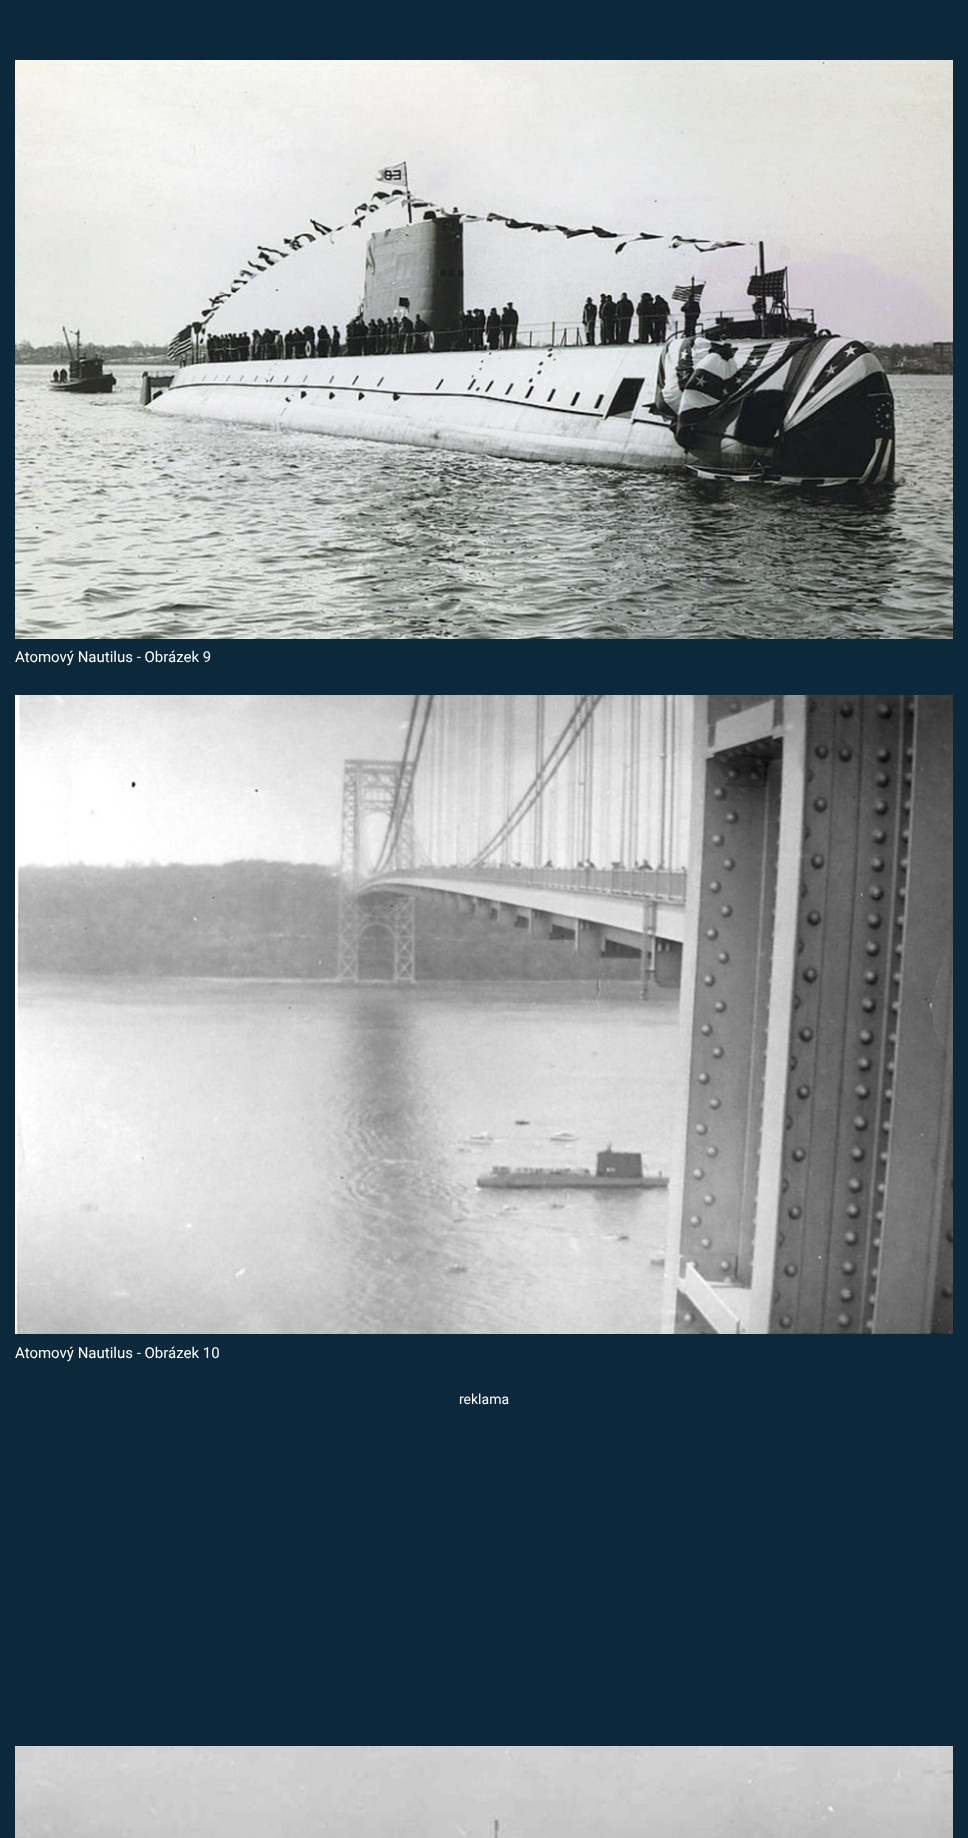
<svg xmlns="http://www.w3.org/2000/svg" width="968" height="1838">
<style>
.a{font:15px Roboto;fill:#fff}
.b{font:14px Roboto;fill:#fff}
</style>
<rect width="100%" height="100%" fill="#0c293c"/>
<image href="1.png" x="15" y="60" width="938" height="579"/>
<image href="2.png" x="15" y="695" width="938" height="639"/>
<image href="3.png" x="15" y="1746" width="938" height="92"/>
<text class="a" x="15" y="662">Atomový Nautilus - Obrázek 9</text>
<text class="a" x="15" y="1358">Atomový Nautilus - Obrázek 10</text>
<text class="b" x="459" y="1404">reklama</text>
</svg>
